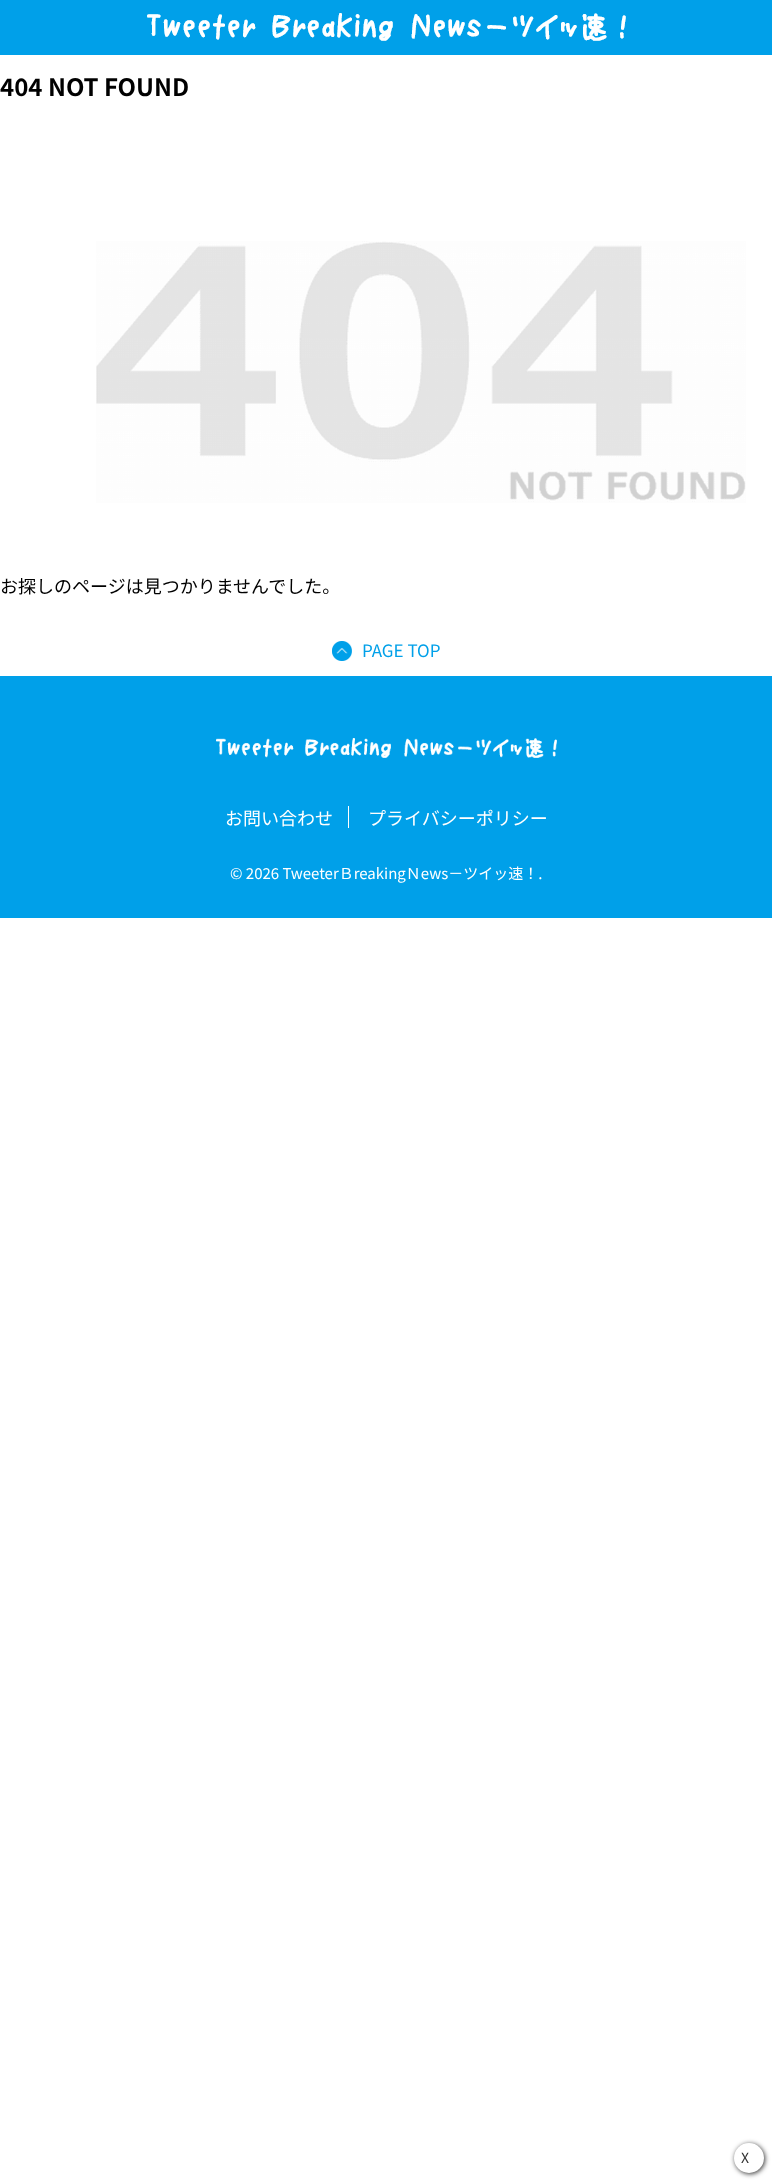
<svg xmlns="http://www.w3.org/2000/svg" width="772" height="2183">
<style>
.a{font:bold 24px Noto Sans JP;fill:#000}
.b{font:18px Noto Sans JP;fill:#000}
.c{font:17px Noto Sans JP;fill:#00a0e9}
.d{font:18px Noto Sans JP;fill:#fff}
.e{font:15px Noto Sans JP;fill:#fff}
.f{font:14px Noto Sans JP;fill:#333}
</style>
<rect width="100%" height="100%" fill="#fff"/>
<path fill="#00a0e9" d="M0 0h772v55H0z"/>
<image href="1.png" x="147" y="13" width="479" height="28"/>
<image href="2.png" x="96" y="241" width="650" height="262"/>
<image href="3.png" x="332" y="641" width="20" height="20"/>
<path fill="#00a0e9" d="M0 676h772v242H0z"/>
<image href="4.png" x="216" y="738" width="341" height="20"/>
<path fill="#fff" d="M348 806h1v22H348z"/>
<rect fill="#333" filter="blur(2.5px)" x="735" y="2144" width="30" height="30" rx="15"/>
<circle fill="#fff" cx="749" cy="2158" r="15"/>
<text class="a" x="0" y="96">404 NOT FOUND</text>
<text class="b" x="0" y="593">お探しのページは見つかりませんでした。</text>
<text class="c" x="362" y="657">PAGE TOP</text>
<text class="d" x="225" y="825">お問い合わせ</text>
<text class="d" x="368" y="825">プライバシーポリシー</text>
<text class="e" x="230" y="879">© 2026 TweeterＢreakingＮews－ツイッ速！.</text>
<text class="f" x="741" y="2163">X</text>
</svg>
